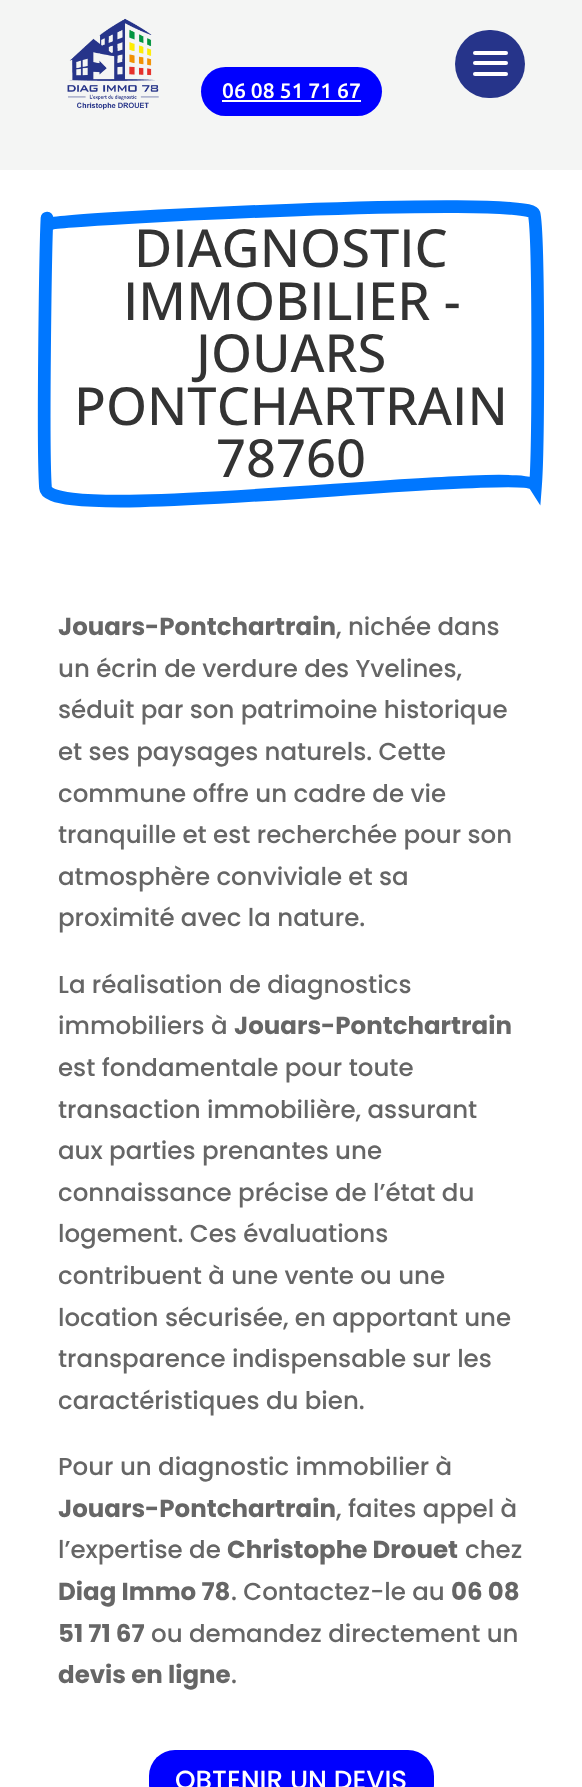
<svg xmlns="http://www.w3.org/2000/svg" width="582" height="1787">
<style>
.a{font:500 21px Ubuntu;fill:#fff}
.b{font:500 52.5px Open Sans;fill:#333}
.c{font:bold 24.5px Poppins;fill:#666}
.d{font:500 24.5px Poppins;fill:#666}
.e{font:500 26.25px Poppins;fill:#fff}
</style>
<rect width="100%" height="100%" fill="#fff"/>
<path fill="#f4f5f4" d="M0 0h582v170H0z"/>
<image href="1.png" x="67" y="18" width="92" height="92"/>
<rect fill="#26348a" x="455" y="30" width="70" height="68" rx="34"/>
<rect fill="#fff" x="473" y="51" width="35" height="4" rx="2"/>
<rect fill="#fff" x="473" y="61" width="35" height="4" rx="2"/>
<rect fill="#fff" x="473" y="72" width="35" height="4" rx="2"/>
<rect fill="#00f" x="201" y="67" width="181" height="49" rx="24.5"/>
<path fill="#fff" d="M222 100h139v2H222z"/>
<path fill="none" stroke="#07f" stroke-width="12.7" stroke-linecap="round" d="M47 218c-1.5 30-4.5 230.5-1.5 270c3 39 476-24 490-2c3-38.5 3.5-254-1.5-272.5c-5-18.5-477.5 6-483 10"/>
<rect fill="#00f" x="149" y="1750" width="285" height="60" rx="26"/>
<text class="a" x="222" y="98">06 08 51 71 67</text>
<text class="b" x="134" y="267">DIAGNOSTIC</text>
<text class="b" x="123" y="320">IMMOBILIER -</text>
<text class="b" x="196" y="372">JOUARS</text>
<text class="b" x="74" y="425">PONTCHARTRAIN</text>
<text class="b" x="216" y="477">78760</text>
<text class="c" x="58" y="635">Jouars-Pontchartrain</text>
<text class="d" x="336" y="635">, nichée dans</text>
<text class="d" x="58" y="677">un écrin de verdure des Yvelines,</text>
<text class="d" x="58" y="718">séduit par son patrimoine historique</text>
<text class="d" x="58" y="760">et ses paysages naturels. Cette</text>
<text class="d" x="58" y="802">commune offre un cadre de vie</text>
<text class="d" x="58" y="843">tranquille et est recherchée pour son</text>
<text class="d" x="58" y="885">atmosphère conviviale et sa</text>
<text class="d" x="58" y="926">proximité avec la nature.</text>
<text class="d" x="58" y="993">La réalisation de diagnostics</text>
<text class="d" x="58" y="1034">immobiliers à</text>
<text class="c" x="234" y="1034">Jouars-Pontchartrain</text>
<text class="d" x="58" y="1076">est fondamentale pour toute</text>
<text class="d" x="58" y="1118">transaction immobilière, assurant</text>
<text class="d" x="58" y="1159">aux parties prenantes une</text>
<text class="d" x="58" y="1201">connaissance précise de l’état du</text>
<text class="d" x="58" y="1242">logement. Ces évaluations</text>
<text class="d" x="58" y="1284">contribuent à une vente ou une</text>
<text class="d" x="58" y="1326">location sécurisée, en apportant une</text>
<text class="d" x="58" y="1367">transparence indispensable sur les</text>
<text class="d" x="58" y="1409">caractéristiques du bien.</text>
<text class="d" x="58" y="1475">Pour un diagnostic immobilier à</text>
<text class="c" x="58" y="1517">Jouars-Pontchartrain</text>
<text class="d" x="336" y="1517">, faites appel à</text>
<text class="d" x="58" y="1558">l’expertise de</text>
<text class="c" x="227" y="1558">Christophe Drouet</text>
<text class="d" x="465" y="1558">chez</text>
<text class="c" x="58" y="1600">Diag Immo 78</text>
<text class="d" x="231" y="1600">. Contactez-le au</text>
<text class="c" x="451" y="1600">06 08</text>
<text class="c" x="58" y="1642">51 71 67</text>
<text class="d" x="151" y="1642">ou demandez directement un</text>
<text class="c" x="58" y="1683">devis en ligne</text>
<text class="d" x="231" y="1683">.</text>
<text class="e" x="175" y="1789">OBTENIR UN DEVIS</text>
</svg>
